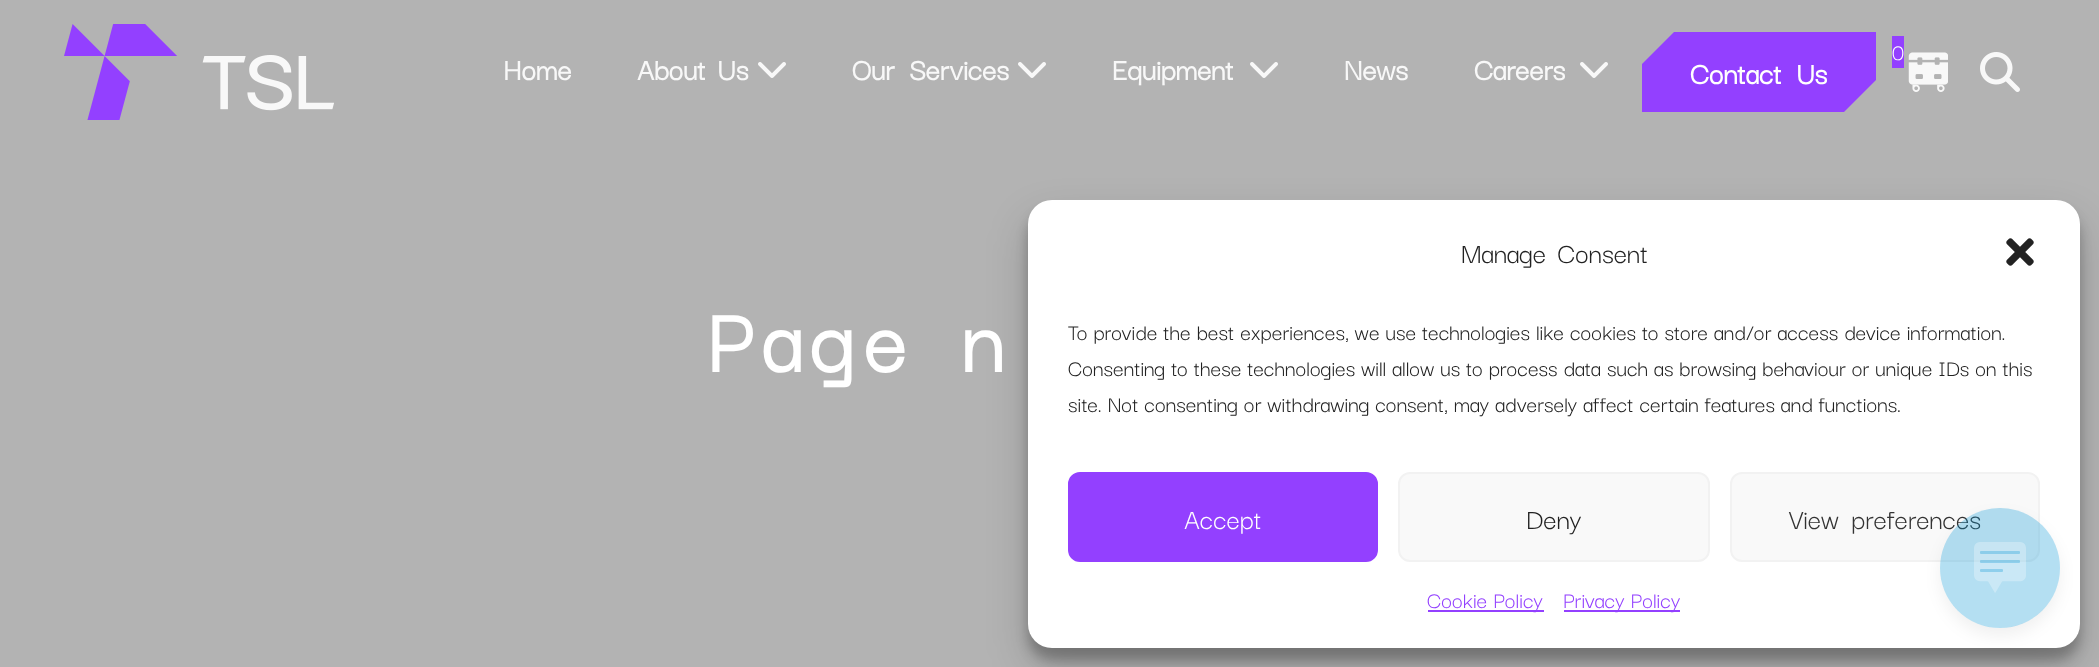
<svg xmlns="http://www.w3.org/2000/svg" width="2099" height="667">
<style>
.a{font:bold 32px Darker Grotesque;fill:#f8f8f8}
.b{font:bold 32px Darker Grotesque;fill:#fff}
.c{font:24px Darker Grotesque;fill:#fff}
.d{font:bold 96px Darker Grotesque;letter-spacing:9.5px;fill:#fff}
.e{font:30px Darker Grotesque;fill:#222}
.f{font:24px Darker Grotesque;fill:#222}
.g{font:30px Darker Grotesque;fill:#fff}
.h{font:30px Darker Grotesque;fill:#333}
.i{font:24px Darker Grotesque;fill:#9340ff}
</style>
<defs>
<clipPath id="clip1"><path d="M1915 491h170v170h-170zm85 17c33 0 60 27 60 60c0 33-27 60-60 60c-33 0-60-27-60-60c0-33 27-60 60-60z" clip-rule="evenodd"/></clipPath>
</defs>
<rect width="100%" height="100%" fill="#b3b3b3"/>
<image href="1.png" x="64" y="24" width="270" height="96"/>
<image href="2.png" x="758" y="62" width="28" height="16"/>
<image href="2.png" x="1018" y="62" width="28" height="16"/>
<image href="2.png" x="1250" y="62" width="28" height="16"/>
<image href="2.png" x="1580" y="62" width="28" height="16"/>
<path fill="#9340ff" d="M1642 64v48h202l32-32v-48h-202z"/>
<path fill="#9340ff" d="M1892 36h12v32H1892z"/>
<image href="3.png" x="1908" y="52" width="40" height="40"/>
<image href="4.png" x="1980" y="52" width="40" height="40"/>
<rect fill="#0000003b" filter="blur(6px)" x="1028" y="212" width="1052" height="448" rx="24"/>
<rect fill="#00000030" filter="blur(20px)" x="1028" y="220" width="1052" height="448" rx="24"/>
<rect fill="#fff" x="1028" y="200" width="1052" height="448" rx="24"/>
<image href="5.png" x="2006" y="238" width="28" height="28"/>
<rect fill="#9340ff" stroke="#9340ff" stroke-width="2" x="1069" y="473" width="308" height="88" rx="11"/>
<rect fill="#f9f9f9" stroke="#f2f2f2" stroke-width="2" x="1399" y="473" width="310" height="88" rx="11"/>
<rect fill="#f9f9f9" stroke="#f2f2f2" stroke-width="2" x="1731" y="473" width="308" height="88" rx="11"/>
<path fill="#9340ff" d="M1428 610h116v2H1428z"/>
<path fill="#9340ff" d="M1564 610h116v2H1564z"/>
<g clip-path="url(#clip1)">
<rect fill="#0000000f" filter="blur(8px)" x="1940" y="516" width="120" height="120" rx="60"/>
</g>
<text class="a" x="503" y="80">Home</text>
<text class="a" x="637" y="80" word-spacing="4">About Us</text>
<text class="a" x="852" y="80" word-spacing="7">Our Services</text>
<text class="a" x="1112" y="80">Equipment</text>
<text class="a" x="1344" y="80">News</text>
<text class="a" x="1474" y="80">Careers</text>
<text class="b" x="1690" y="84" word-spacing="7">Contact Us</text>
<text class="c" x="1892" y="60">0</text>
<text class="d" x="706" y="372" word-spacing="13">Page n</text>
<text class="e" x="1461" y="263" word-spacing="4">Manage Consent</text>
<text class="f" x="1068" y="340">To provide the best experiences, we use technologies like cookies to store and/or access device information.</text>
<text class="f" x="1068" y="376">Consenting to these technologies will allow us to process data such as browsing behaviour or unique IDs on this</text>
<text class="f" x="1068" y="412">site. Not consenting or withdrawing consent, may adversely affect certain features and functions.</text>
<text class="g" x="1184" y="529">Accept</text>
<text class="e" x="1526" y="529">Deny</text>
<text class="h" x="1789" y="529" word-spacing="5">View preferences</text>
<text class="i" x="1427" y="608">Cookie Policy</text>
<text class="i" x="1563" y="608">Privacy Policy</text>
<circle fill="#0596d44d" cx="2000" cy="568" r="60"/>
<image href="6.png" x="1974" y="542" width="52" height="51"/>
</svg>
